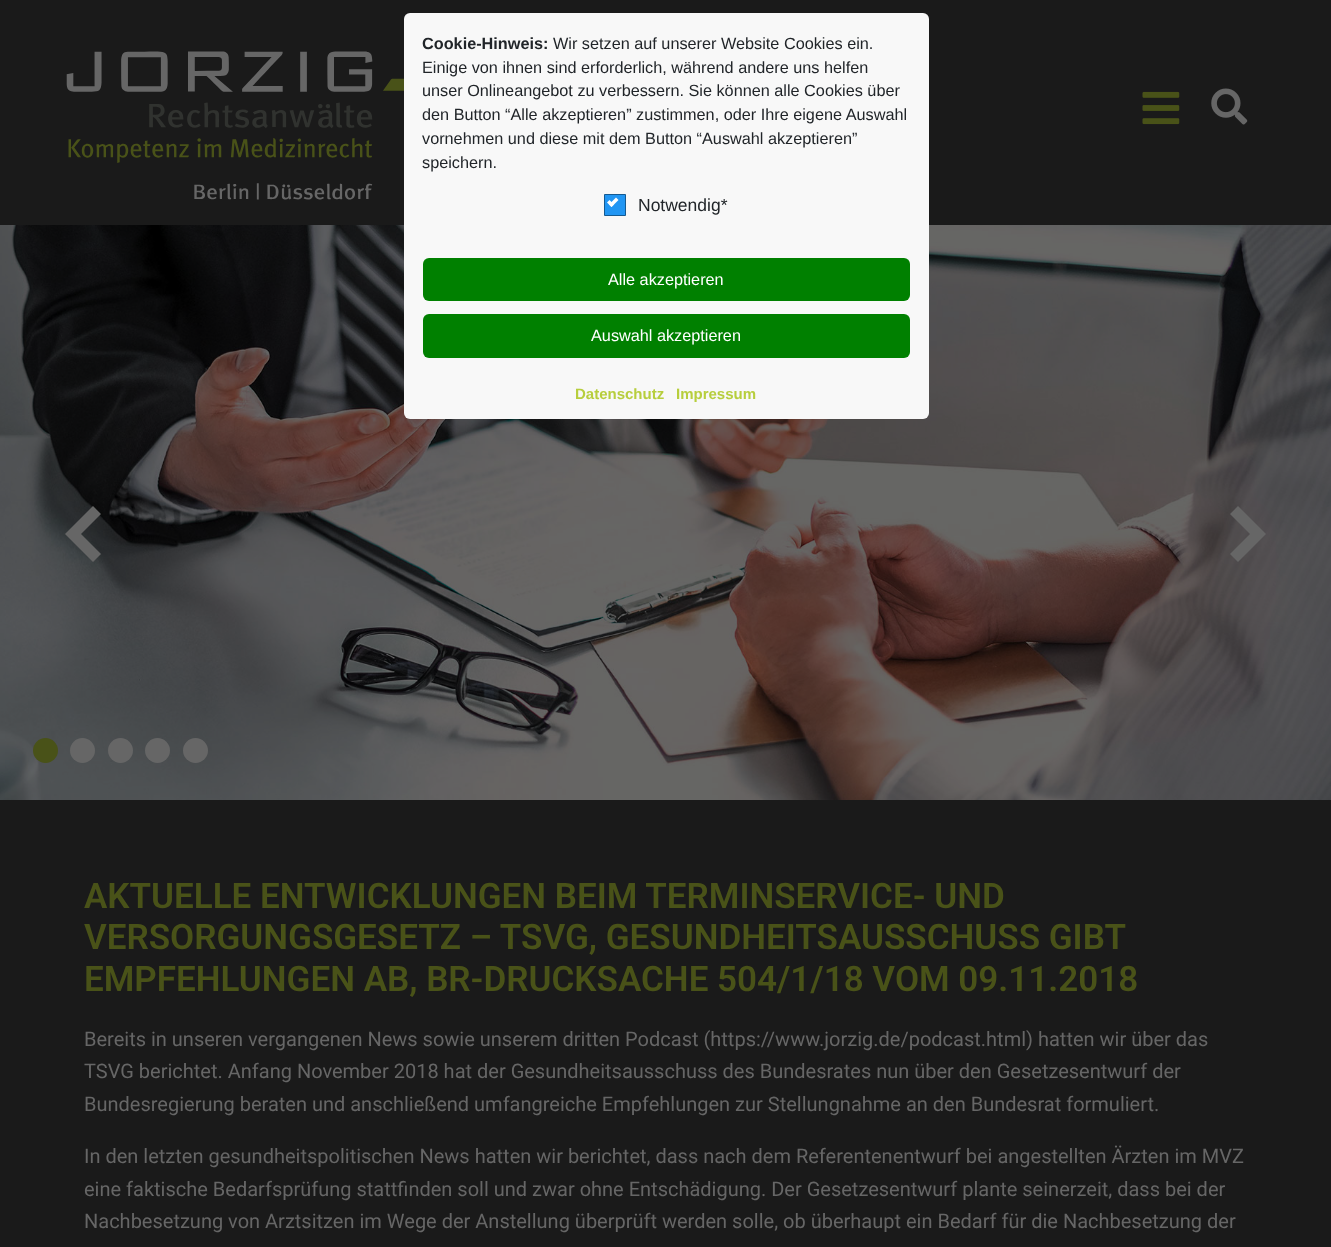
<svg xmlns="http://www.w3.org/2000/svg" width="1331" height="1247">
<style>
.a{font:bold 16.25px Liberation Sans;fill:#212529}
.b{font:16.25px Liberation Sans;fill:#212529}
.c{font:17.5px Liberation Sans;fill:#212529}
.d{font:16.25px Liberation Sans;fill:#fff}
.e{font:bold 15px Liberation Sans;fill:#b7ce3d}
.f{font:600 35px Roboto;fill:#495218}
.g{font:20px Roboto;fill:#666}
</style>
<rect width="100%" height="100%" fill="#1a1a1a"/>
<image href="4.png" x="0" y="225" width="1331" height="575"/>
<rect fill="#f8f8f8" x="404" y="13" width="525" height="406" rx="6"/>
<path fill="#2196f3" stroke="#145a92" d="M604.5 194.5h21v21H604.5z"/>
<path fill="#fff" d="M616 197.5l2.5 2.5l-7 7l-2.5-2.5z"/>
<path fill="#fff" d="M609.5 200l4.5 4.5l-2.5 2.5l-4.5-4.5z"/>
<rect fill="#008000" x="423" y="258" width="487" height="43" rx="6"/>
<rect fill="#008000" x="423" y="314" width="487" height="44" rx="6"/>
<image href="1.png" x="66" y="51" width="338" height="149"/>
<image href="2.png" x="1142" y="91" width="38" height="34"/>
<image href="3.png" x="1211" y="88" width="37" height="37"/>
<path fill="#666" d="M93 506l-28 28l28 28l8-8l-20-20l20-20z"/>
<path fill="#666" d="M1238 562l28-28l-28-28l-8 8l20 20l-20 20z"/>
<circle fill="#495218" cx="45.5" cy="750.5" r="12.5"/>
<circle fill="#666" cx="82.5" cy="750.5" r="12.5"/>
<circle fill="#666" cx="120.5" cy="750.5" r="12.5"/>
<circle fill="#666" cx="157.5" cy="750.5" r="12.5"/>
<circle fill="#666" cx="195.5" cy="750.5" r="12.5"/>
<text class="a" x="422" y="49">Cookie-Hinweis:</text>
<text class="b" x="553" y="49">Wir setzen auf unserer Website Cookies ein.</text>
<text class="b" x="422" y="73">Einige von ihnen sind erforderlich, während andere uns helfen</text>
<text class="b" x="422" y="96">unser Onlineangebot zu verbessern. Sie können alle Cookies über</text>
<text class="b" x="422" y="120">den Button “Alle akzeptieren” zustimmen, oder Ihre eigene Auswahl</text>
<text class="b" x="422" y="144">vornehmen und diese mit dem Button “Auswahl akzeptieren”</text>
<text class="b" x="422" y="168">speichern.</text>
<text class="c" x="638" y="211">Notwendig*</text>
<text class="d" x="608" y="285">Alle akzeptieren</text>
<text class="d" x="591" y="341">Auswahl akzeptieren</text>
<text class="e" x="575" y="399">Datenschutz</text>
<text class="e" x="676" y="399">Impressum</text>
<text class="f" x="84" y="908">AKTUELLE ENTWICKLUNGEN BEIM TERMINSERVICE- UND</text>
<text class="f" x="84" y="949">VERSORGUNGSGESETZ – TSVG, GESUNDHEITSAUSSCHUSS GIBT</text>
<text class="f" x="84" y="991">EMPFEHLUNGEN AB, BR-DRUCKSACHE 504/1/18 VOM 09.11.2018</text>
<text class="g" x="84" y="1046">Bereits in unseren vergangenen News sowie unserem dritten Podcast (https://www.jorzig.de/podcast.html) hatten wir über das</text>
<text class="g" x="84" y="1078">TSVG berichtet. Anfang November 2018 hat der Gesundheitsausschuss des Bundesrates nun über den Gesetzesentwurf der</text>
<text class="g" x="84" y="1111">Bundesregierung beraten und anschließend umfangreiche Empfehlungen zur Stellungnahme an den Bundesrat formuliert.</text>
<text class="g" x="84" y="1163">In den letzten gesundheitspolitischen News hatten wir berichtet, dass nach dem Referentenentwurf bei angestellten Ärzten im MVZ</text>
<text class="g" x="84" y="1196">eine faktische Bedarfsprüfung stattfinden soll und zwar ohne Entschädigung. Der Gesetzesentwurf plante seinerzeit, dass bei der</text>
<text class="g" x="84" y="1228">Nachbesetzung von Arztsitzen im Wege der Anstellung überprüft werden solle, ob überhaupt ein Bedarf für die Nachbesetzung der</text>
</svg>
